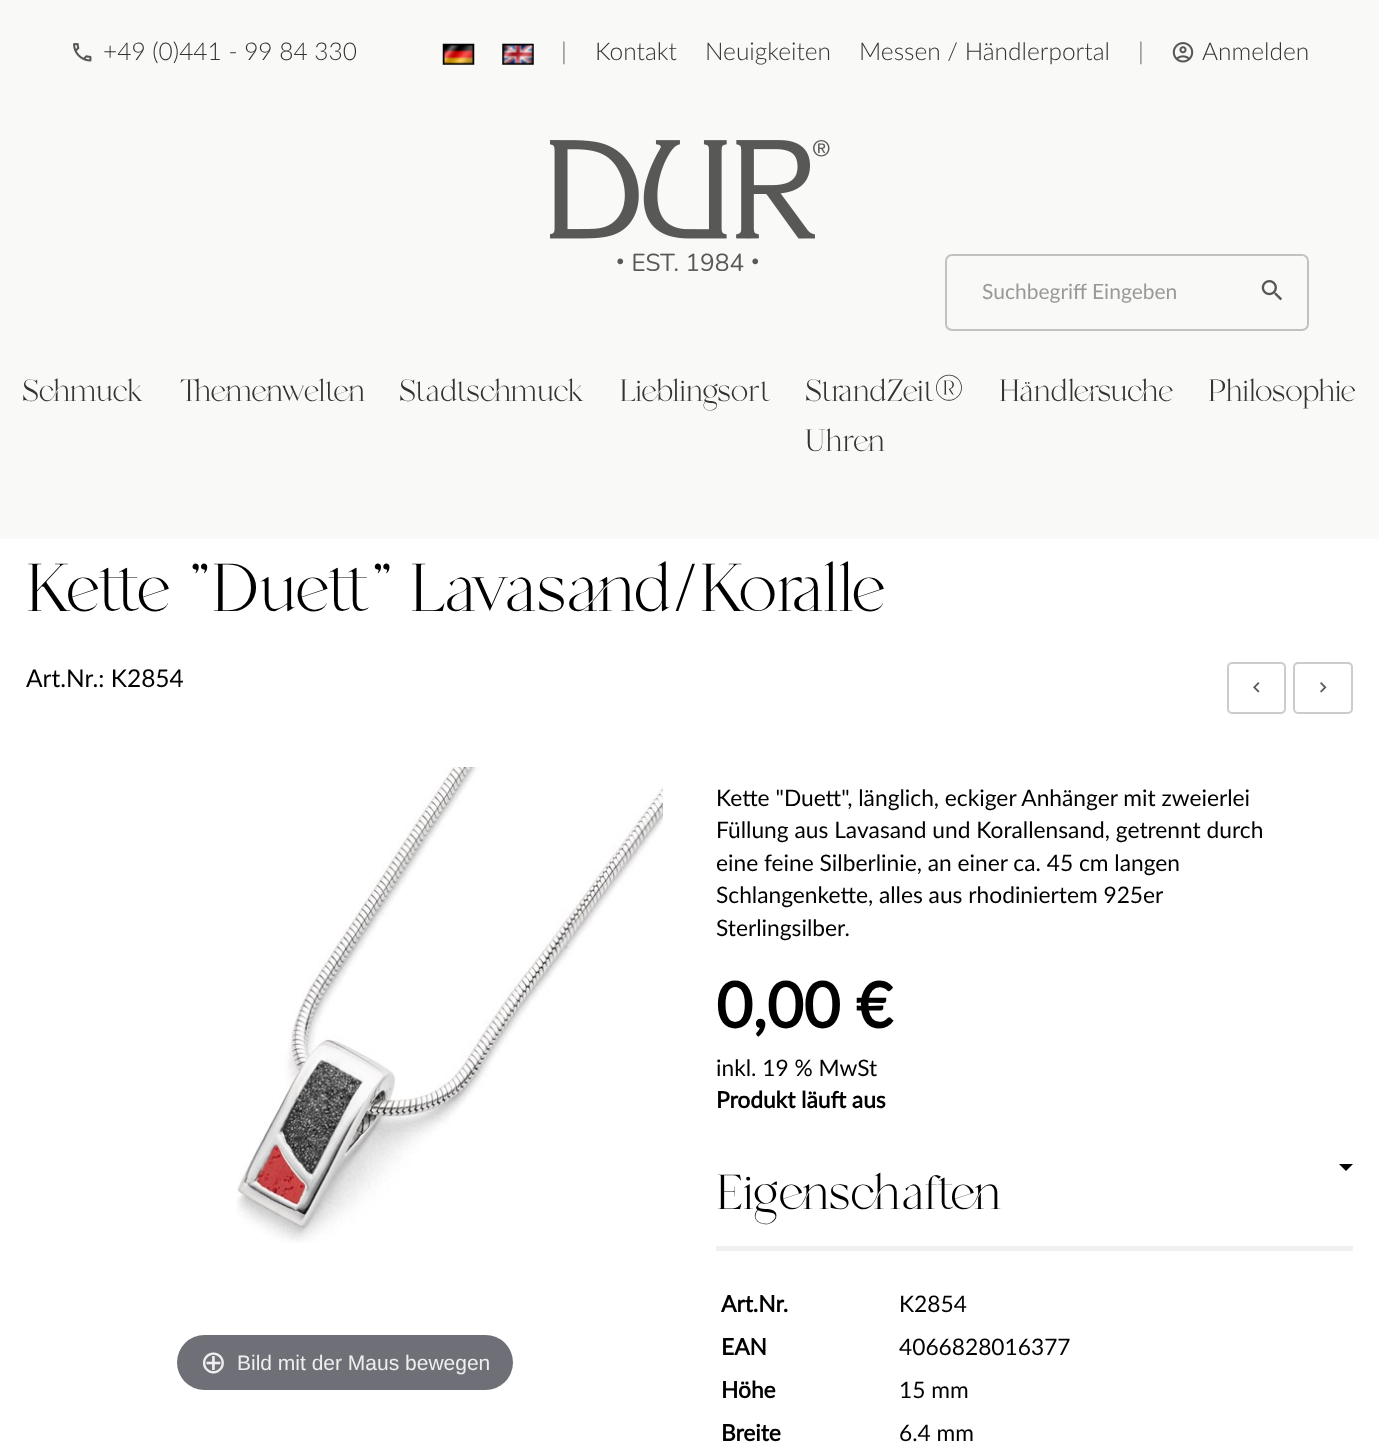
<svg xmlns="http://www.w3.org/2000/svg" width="1379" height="1452">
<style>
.a{font:300 24.5px Lato;fill:#333}
.b{font:300 24.5px Lato;fill:#575756}
.c{font:21px Lato;fill:#999}
.d{font:43.75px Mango;fill:#333}
.e{font:96.25px Mango;fill:#000}
.f{font:24.5px Lato;fill:#000}
.g{font:32px DejaVu Sans;fill:#eee}
.h{font:21px Liberation Sans;fill:#eee}
.i{font:22.75px Lato;fill:#000}
.j{font:bold 63px Lato;fill:#000}
.k{font:bold 22.75px Lato;fill:#000}
.l{font:70px Mango;fill:#000}
</style>
<rect width="100%" height="100%" fill="#f9f9f7"/>
<image href="1.png" x="73" y="43" width="19" height="19"/>
<image href="2.png" x="442" y="43" width="33" height="22"/>
<image href="3.png" x="502" y="43" width="32" height="22"/>
<image href="4.png" x="1172" y="42" width="22" height="21"/>
<image href="5.png" x="550" y="140" width="280" height="131"/>
<rect fill="none" stroke="#c2c2c2" stroke-width="2" x="946" y="255" width="362" height="75" rx="6"/>
<image href="6.png" x="1261" y="280" width="21" height="21"/>
<path fill="#fff" d="M0 539h1379v913H0z"/>
<rect fill="none" stroke="#ccc" stroke-width="2" x="1228" y="663" width="57" height="50" rx="4"/>
<image href="7.png" x="1253" y="682" width="7" height="11"/>
<rect fill="none" stroke="#ccc" stroke-width="2" x="1294" y="663" width="58" height="50" rx="4"/>
<image href="8.png" x="1320" y="682" width="7" height="11"/>
<image href="9.png" x="236" y="767" width="427" height="476"/>
<rect fill="#6f7077" x="177" y="1335" width="336" height="55" rx="27.5"/>
<path fill="#f2f0ef" d="M716 1246h637v5H716z"/>
<path fill="#000" d="M1339 1164h14l-7 7z"/>
<text class="a" x="103" y="60">+49 (0)441 - 99 84 330</text>
<text class="b" x="561" y="60">|</text>
<text class="a" x="595" y="60">Kontakt</text>
<text class="a" x="705" y="60">Neuigkeiten</text>
<text class="a" x="859" y="60">Messen / Händlerportal</text>
<text class="b" x="1138" y="60">|</text>
<text class="a" x="1202" y="60">Anmelden</text>
<text class="c" x="982" y="299">Suchbegriff Eingeben</text>
<text class="d" x="22" y="401">Schmuck</text>
<text class="d" x="179" y="401">Themenwelten</text>
<text class="d" x="399" y="401">Stadtschmuck</text>
<text class="d" x="620" y="401">Lieblingsort</text>
<text class="d" x="805" y="401">StrandZeit®</text>
<text class="d" x="805" y="451">Uhren</text>
<text class="d" x="999" y="401">Händlersuche</text>
<text class="d" x="1208" y="401">Philosophie</text>
<text class="e" x="26" y="611">Kette "Duett" Lavasand/Koralle</text>
<text class="f" x="26" y="687">Art.Nr.: K2854</text>
<text class="g" x="200" y="1373">⊕</text>
<text class="h" x="237" y="1370">Bild mit der Maus bewegen</text>
<text class="i" x="716" y="806">Kette "Duett", länglich, eckiger Anhänger mit zweierlei</text>
<text class="i" x="716" y="838">Füllung aus Lavasand und Korallensand, getrennt durch</text>
<text class="i" x="716" y="871">eine feine Silberlinie, an einer ca. 45 cm langen</text>
<text class="i" x="716" y="903">Schlangenkette, alles aus rhodiniertem 925er</text>
<text class="i" x="716" y="936">Sterlingsilber.</text>
<text class="j" x="716" y="1028">0,00 €</text>
<text class="i" x="716" y="1076">inkl. 19 % MwSt</text>
<text class="k" x="716" y="1108">Produkt läuft aus</text>
<text class="l" x="716" y="1209">Eigenschaften</text>
<text class="k" x="721" y="1312">Art.Nr.</text>
<text class="i" x="899" y="1312">K2854</text>
<text class="k" x="721" y="1355">EAN</text>
<text class="i" x="899" y="1355">4066828016377</text>
<text class="k" x="721" y="1398">Höhe</text>
<text class="i" x="899" y="1398">15 mm</text>
<text class="k" x="721" y="1441">Breite</text>
<text class="i" x="899" y="1441">6.4 mm</text>
</svg>
